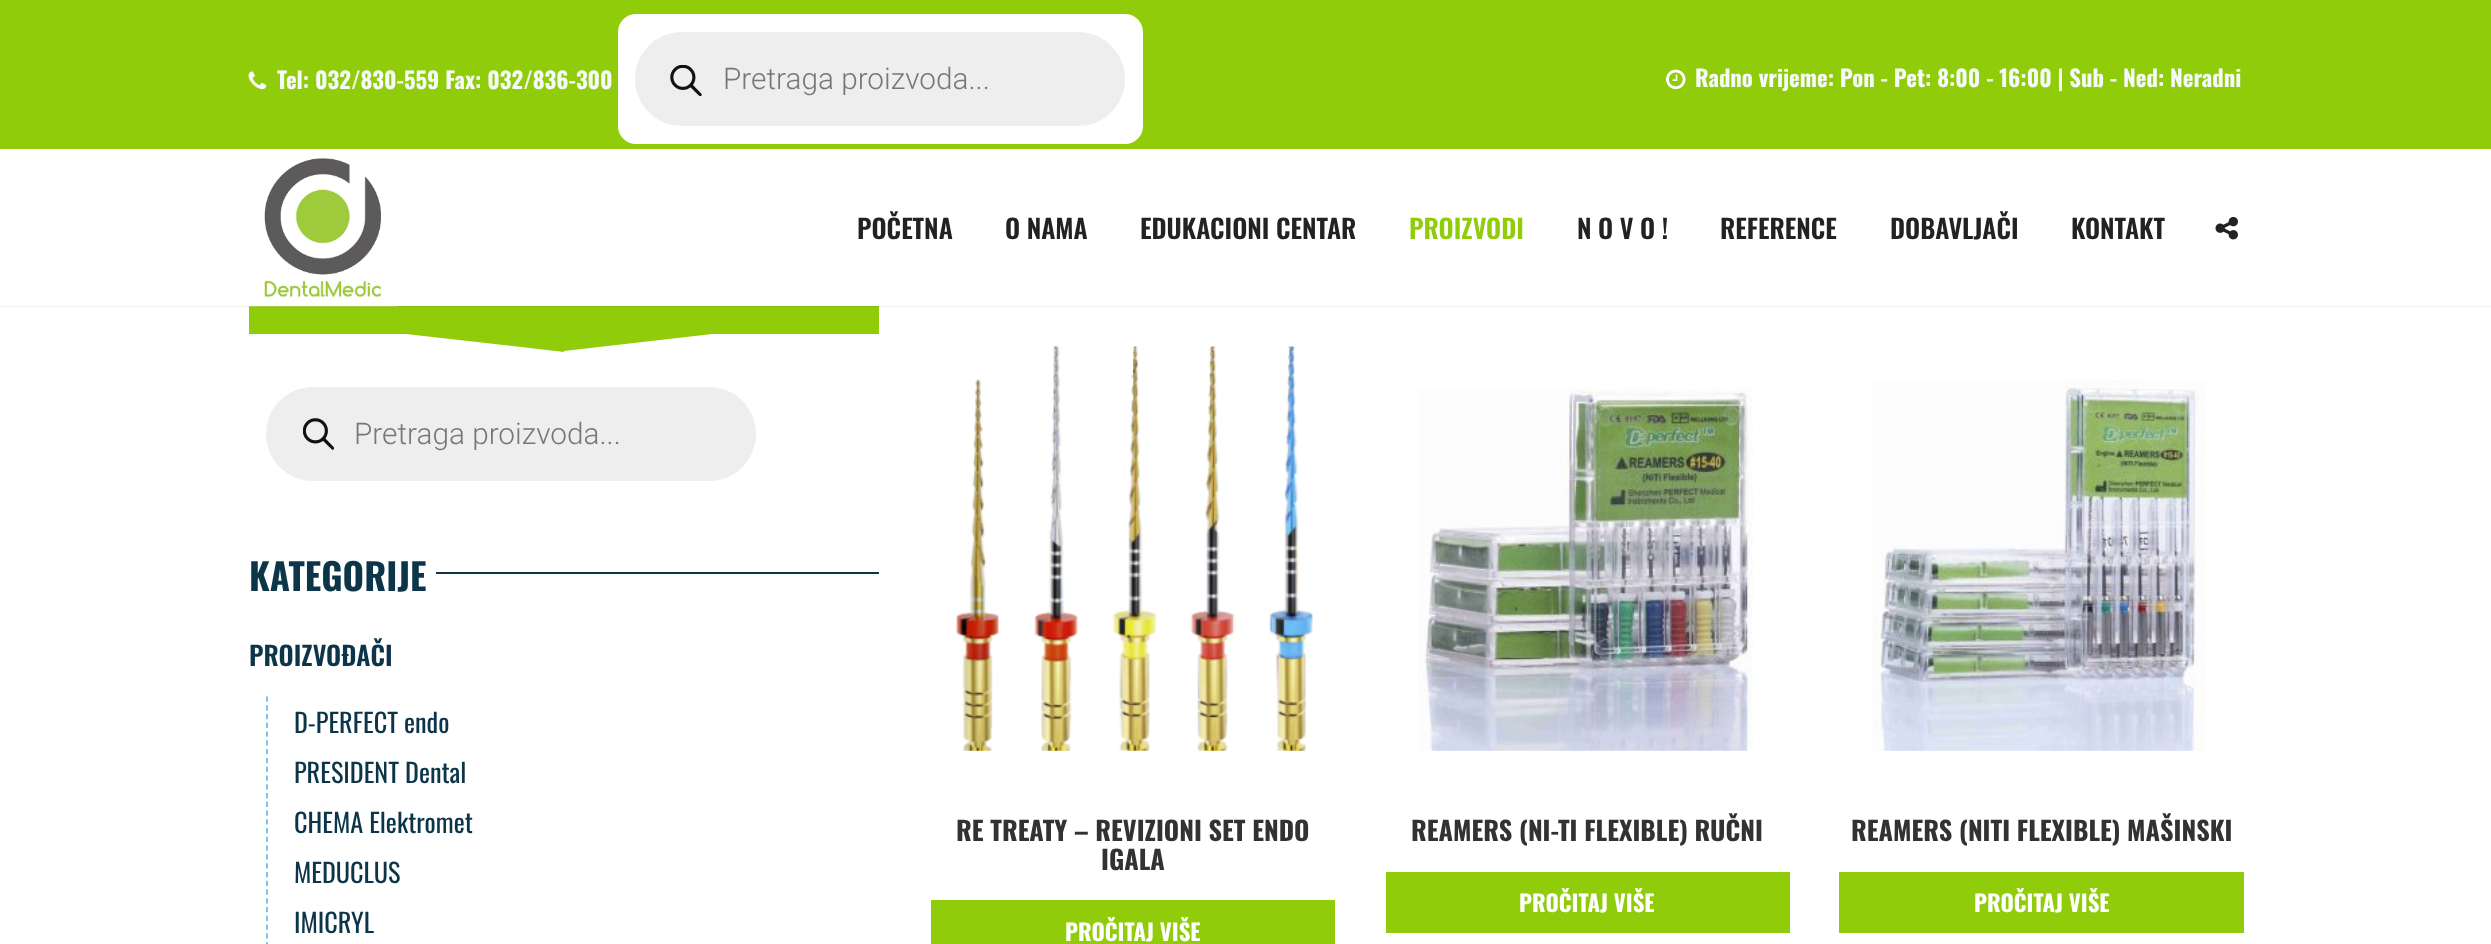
<svg xmlns="http://www.w3.org/2000/svg" width="2491" height="944">
<style>
.a{font:bold 22.75px Oswald;fill:#f5f9fa}
.b{font:300 29.75px Roboto;fill:#777}
.c{font:600 26.25px Oswald;fill:#222}
.d{font:600 26.25px Oswald;fill:#90cc0a}
.e{font:bold 36.75px Oswald;fill:#0c354a}
.f{font:600 26.25px Oswald;fill:#0c354a}
.g{font:26.25px Oswald;fill:#0c354a}
.h{font:bold 26.25px Oswald;fill:#323232}
.i{font:bold 22.75px Oswald;fill:#fff}
</style>
<rect width="100%" height="100%" fill="#fff"/>
<path fill="#90cc0a" d="M249 306h630v28H249z"/>
<path fill="#00000033" filter="blur(1px)" d="M0 0h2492v306H0z"/>
<path fill="#fff" d="M0 149h2491v157H0z"/>
<path fill="#90cc0a" d="M0 0h2491v149H0z"/>
<image href="1.png" x="248" y="71" width="19" height="19"/>
<rect fill="#fff" x="618" y="14" width="525" height="130" rx="18"/>
<rect fill="#eee" x="635" y="32" width="490" height="94" rx="47"/>
<image href="2.png" x="670" y="65" width="32" height="31"/>
<image href="3.png" x="1666" y="69" width="20" height="21"/>
<image href="4.png" x="249" y="158" width="149" height="149"/>
<image href="5.png" x="2215" y="216" width="23" height="24"/>
<path fill="#90cc0a" d="M406 334h158v18z"/>
<path fill="#90cc0a" d="M721 333h-157v18z"/>
<rect fill="#eee" x="266" y="387" width="490" height="94" rx="47"/>
<image href="6.png" x="303" y="418" width="31" height="32"/>
<path fill="#0c354a" d="M436 572h443v2H436z"/>
<path fill="none" stroke="#6ebee7" stroke-width="1.8" stroke-dasharray="5.25 3.52" d="M267 696.5v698.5"/>
<image href="7.png" x="956" y="346" width="357" height="405"/>
<path fill="#90cc0a" d="M931 900h404v44H931z"/>
<image href="8.png" x="1418" y="389" width="335" height="362"/>
<path fill="#90cc0a" d="M1386 872h404v61H1386z"/>
<image href="9.png" x="1872" y="380" width="334" height="371"/>
<path fill="#90cc0a" d="M1839 872h405v61H1839z"/>
<text class="a" x="277" y="89">Tel: 032/830-559 Fax: 032/836-300</text>
<text class="b" x="723" y="89">Pretraga proizvoda...</text>
<text class="a" x="1695" y="87">Radno vrijeme: Pon - Pet: 8:00 - 16:00 | Sub - Ned: Neradni</text>
<text class="c" x="857" y="239">POČETNA</text>
<text class="c" x="1005" y="239">O NAMA</text>
<text class="c" x="1140" y="239">EDUKACIONI CENTAR</text>
<text class="d" x="1409" y="239">PROIZVODI</text>
<text class="c" x="1577" y="239">N O V O !</text>
<text class="c" x="1720" y="239">REFERENCE</text>
<text class="c" x="1890" y="239">DOBAVLJAČI</text>
<text class="c" x="2071" y="239">KONTAKT</text>
<text class="b" x="354" y="444">Pretraga proizvoda...</text>
<text class="e" x="249" y="591">KATEGORIJE</text>
<text class="f" x="249" y="666">PROIZVOĐAČI</text>
<text class="g" x="294" y="733">D-PERFECT endo</text>
<text class="g" x="294" y="783">PRESIDENT Dental</text>
<text class="g" x="294" y="833">CHEMA Elektromet</text>
<text class="g" x="294" y="883">MEDUCLUS</text>
<text class="g" x="294" y="933">IMICRYL</text>
<text class="h" x="956" y="841">RE TREATY – REVIZIONI SET ENDO</text>
<text class="h" x="1101" y="870">IGALA</text>
<text class="i" x="1065" y="941">PROČITAJ VIŠE</text>
<text class="h" x="1411" y="841">REAMERS (NI-TI FLEXIBLE) RUČNI</text>
<text class="i" x="1519" y="912">PROČITAJ VIŠE</text>
<text class="h" x="1851" y="841">REAMERS (NITI FLEXIBLE) MAŠINSKI</text>
<text class="i" x="1974" y="912">PROČITAJ VIŠE</text>
</svg>
